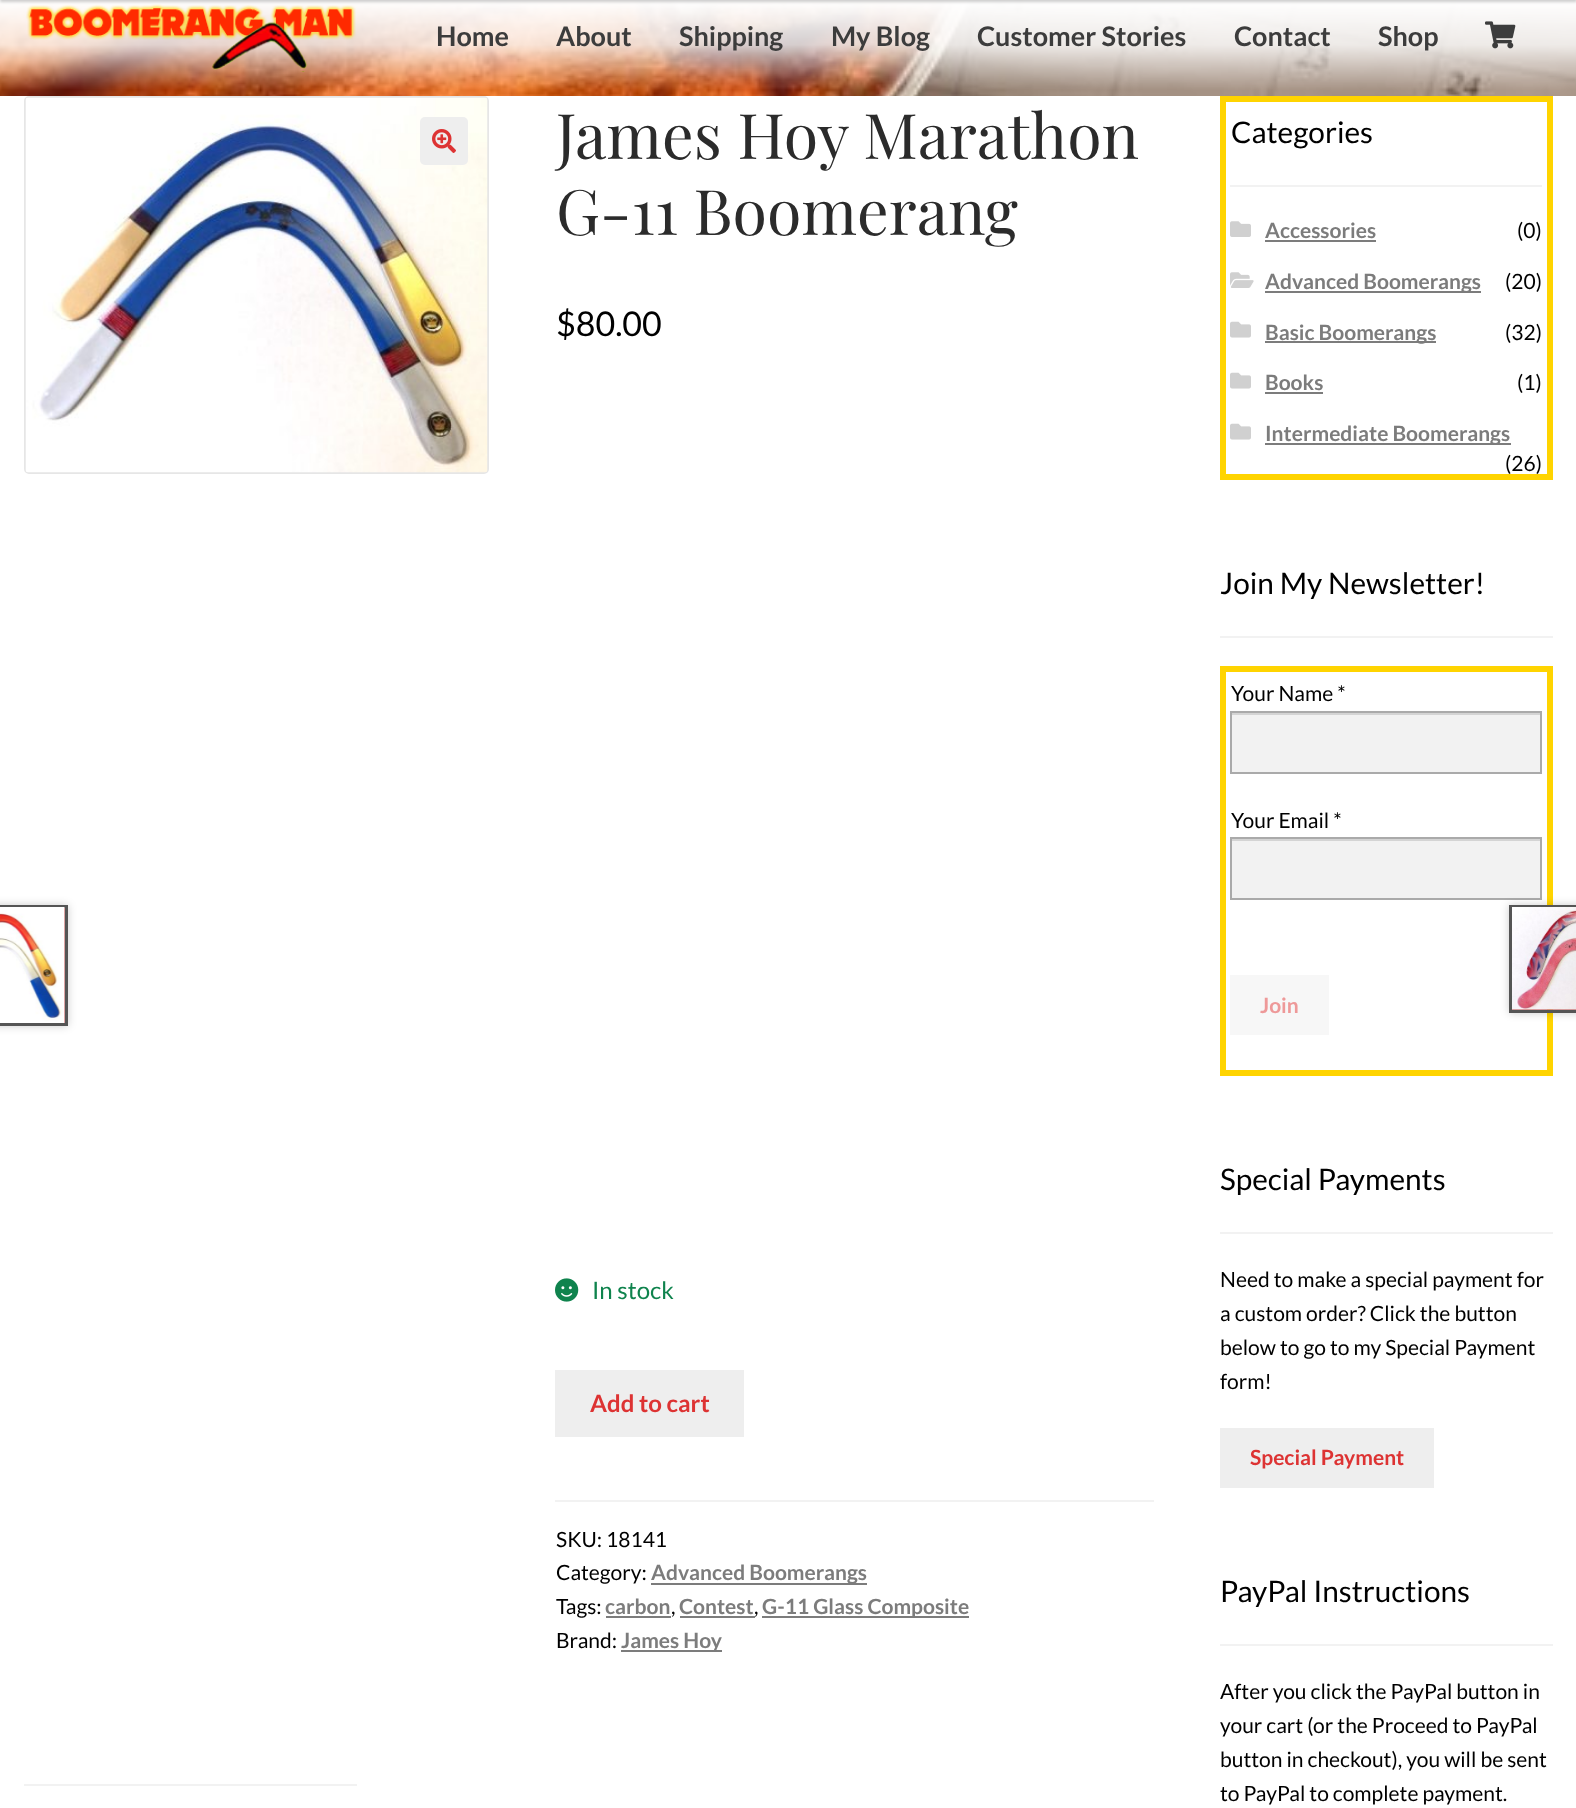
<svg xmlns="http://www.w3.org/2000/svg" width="1576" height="1808">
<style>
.a{font:bold 27px Lato;fill:#3c3c3c}
.b{font:62.75px Playfair Display;fill:#2b2b2b}
.c{font:34px Lato;fill:#000}
.d{font:24px Lato;fill:#0f834d}
.e{font:bold 24px Lato;fill:#d33}
.f{font:21px Lato;fill:#000}
.g{font:bold 21px Lato;fill:#7c7c7c}
.h{font:29.75px Lato;fill:#000}
.i{font:bold 21px Lato;fill:#e99}
.j{font:bold 21px Lato;fill:#d33}
</style>
<rect width="100%" height="100%" fill="#fff"/>
<image href="1.png" x="0" y="0" width="1576" height="96"/>
<image href="2.png" x="26" y="4" width="330" height="68"/>
<path fill="#00000033" filter="blur(1.5px)" d="M0 -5h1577v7H0z"/>
<image href="3.png" x="1485" y="21" width="31" height="28"/>
<rect fill="none" stroke="#e6e6e6" stroke-width="2" x="25" y="97" width="463" height="376" rx="4"/>
<image href="4.png" x="25" y="97" width="463" height="376"/>
<rect fill="#eee" x="420" y="117" width="48" height="48" rx="5"/>
<image href="5.png" x="432" y="129" width="24" height="24"/>
<image href="6.png" x="555" y="1278" width="24" height="24"/>
<path fill="#eee" d="M555 1370h189v67H555z"/>
<path fill="#f2f2f2" d="M555 1500h599v2H555z"/>
<path fill="#7c7c7c" d="M651 1583h216v2H651z"/>
<path fill="#7c7c7c" d="M606 1616h65v2H606z"/>
<path fill="#7c7c7c" d="M680 1616h75v2H680z"/>
<path fill="#7c7c7c" d="M762 1616h207v2H762z"/>
<path fill="#7c7c7c" d="M621 1650h101v2H621z"/>
<path fill="#00000033" filter="blur(4px)" d="M-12 905h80v121H-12z"/>
<path fill="#af1616b8" d="M64 908h1v115H64z"/>
<path fill="none" stroke="#555" stroke-width="3" d="M-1.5 906.5h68v118H-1.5z"/>
<image href="7.png" x="0" y="907" width="65" height="116"/>
<path fill="none" stroke="#ffd400" stroke-width="6" d="M1223 669h327v404H1223z"/>
<path fill="#f2f2f2" d="M1232 841h308v57H1232z"/>
<path fill="#d4d4d4" d="M1232 839h309v2H1232z"/>
<path fill="none" stroke="#aaa" stroke-width="2" d="M1231 838h310v61H1231z"/>
<path fill="#00000033" filter="blur(4px)" d="M1509 905h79v108H1509z"/>
<path fill="#af1616b8" d="M1512 1009h64v1H1512z"/>
<path fill="none" stroke="#555" stroke-width="3" d="M1510.5 906.5h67v105H1510.5z"/>
<image href="8.png" x="1512" y="907" width="64" height="103"/>
<path fill="#f2f2f2" d="M24 1784h333v2H24z"/>
<path fill="none" stroke="#ffd400" stroke-width="6" d="M1223 99h327v378H1223z"/>
<path fill="#f2f2f2" d="M1230 185h312v2H1230z"/>
<image href="9.png" x="1230" y="221" width="21" height="16"/>
<path fill="#7c7c7c" d="M1265 240h111v2H1265z"/>
<image href="10.png" x="1230" y="272" width="24" height="16"/>
<path fill="#7c7c7c" d="M1265 291h216v2H1265z"/>
<image href="11.png" x="1230" y="321" width="21" height="17"/>
<path fill="#7c7c7c" d="M1265 341h171v2H1265z"/>
<image href="11.png" x="1230" y="372" width="21" height="17"/>
<path fill="#7c7c7c" d="M1265 392h58v2H1265z"/>
<image href="11.png" x="1230" y="423" width="21" height="17"/>
<path fill="#7c7c7c" d="M1265 443h246v2H1265z"/>
<path fill="#f2f2f2" d="M1220 636h333v2H1220z"/>
<path fill="#f2f2f2" d="M1232 715h308v57H1232z"/>
<path fill="#d4d4d4" d="M1232 713h309v2H1232z"/>
<path fill="none" stroke="#aaa" stroke-width="2" d="M1231 712h310v61H1231z"/>
<path fill="#f7f7f7" d="M1230 975h99v60H1230z"/>
<path fill="#f2f2f2" d="M1220 1232h333v2H1220z"/>
<path fill="#eee" d="M1220 1428h214v60H1220z"/>
<path fill="#f2f2f2" d="M1220 1644h333v2H1220z"/>
<text class="a" x="436" y="46">Home</text>
<text class="a" x="556" y="46">About</text>
<text class="a" x="679" y="46">Shipping</text>
<text class="a" x="831" y="46">My Blog</text>
<text class="a" x="977" y="46">Customer Stories</text>
<text class="a" x="1234" y="46">Contact</text>
<text class="a" x="1378" y="46">Shop</text>
<text class="b" x="556" y="159">James Hoy Marathon</text>
<text class="b" x="556" y="235">G-11 Boomerang</text>
<text class="c" x="556" y="336">$80.00</text>
<text class="d" x="592" y="1299">In stock</text>
<text class="e" x="590" y="1412">Add to cart</text>
<text class="f" x="556" y="1547">SKU: 18141</text>
<text class="f" x="556" y="1580">Category:</text>
<text class="g" x="651" y="1580">Advanced Boomerangs</text>
<text class="f" x="556" y="1614">Tags:</text>
<text class="g" x="605" y="1614">carbon</text>
<text class="f" x="671" y="1614">,</text>
<text class="g" x="679" y="1614">Contest</text>
<text class="f" x="754" y="1614">,</text>
<text class="g" x="762" y="1614">G-11 Glass Composite</text>
<text class="f" x="556" y="1648">Brand:</text>
<text class="g" x="621" y="1648">James Hoy</text>
<text class="h" x="1231" y="143">Categories</text>
<text class="g" x="1265" y="238">Accessories</text>
<text class="f" x="1517" y="238">(0)</text>
<text class="g" x="1265" y="289">Advanced Boomerangs</text>
<text class="f" x="1505" y="289">(20)</text>
<text class="g" x="1265" y="340">Basic Boomerangs</text>
<text class="f" x="1505" y="340">(32)</text>
<text class="g" x="1265" y="390">Books</text>
<text class="f" x="1517" y="390">(1)</text>
<text class="g" x="1265" y="441">Intermediate Boomerangs</text>
<text class="f" x="1505" y="471">(26)</text>
<text class="h" x="1220" y="594">Join My Newsletter!</text>
<text class="f" x="1231" y="701">Your Name *</text>
<text class="f" x="1231" y="828">Your Email *</text>
<text class="i" x="1260" y="1013">Join</text>
<text class="h" x="1220" y="1190">Special Payments</text>
<text class="f" x="1220" y="1287">Need to make a special payment for</text>
<text class="f" x="1220" y="1321">a custom order? Click the button</text>
<text class="f" x="1220" y="1355">below to go to my Special Payment</text>
<text class="f" x="1220" y="1389">form!</text>
<text class="j" x="1250" y="1465">Special Payment</text>
<text class="h" x="1220" y="1602">PayPal Instructions</text>
<text class="f" x="1220" y="1699">After you click the PayPal button in</text>
<text class="f" x="1220" y="1733">your cart (or the Proceed to PayPal</text>
<text class="f" x="1220" y="1767">button in checkout), you will be sent</text>
<text class="f" x="1220" y="1801">to PayPal to complete payment.</text>
</svg>
